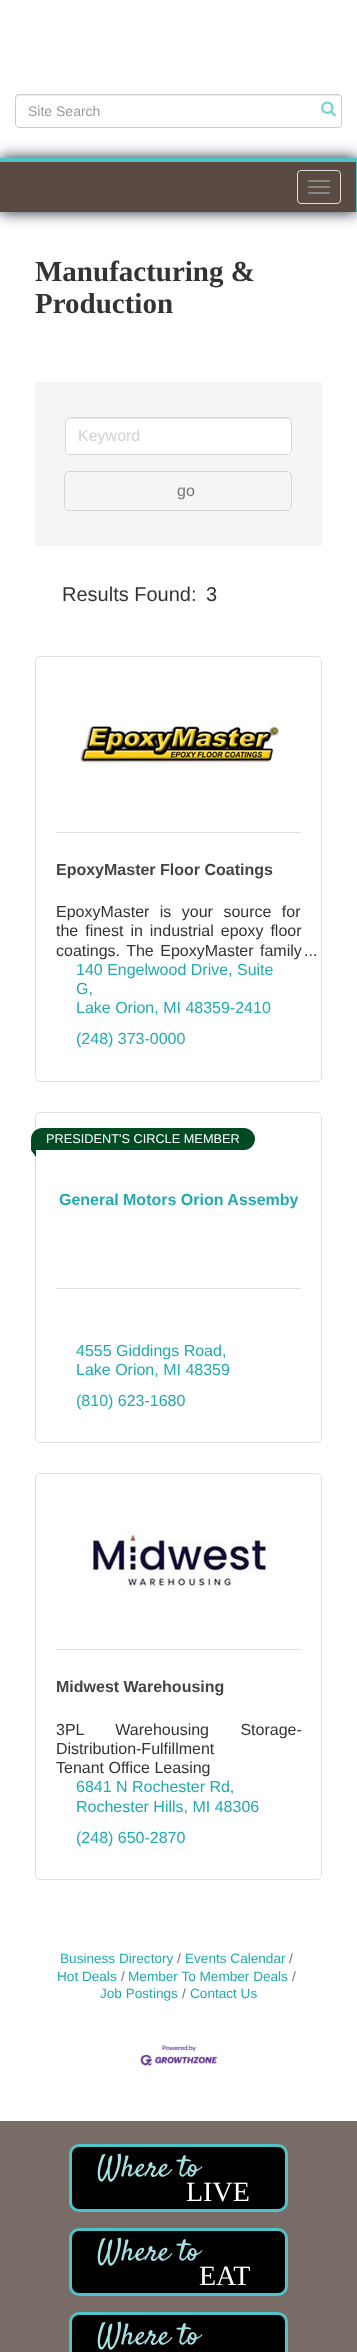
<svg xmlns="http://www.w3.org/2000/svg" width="357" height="2352">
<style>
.a{font:14px Liberation Sans;fill:#999}
.b{font:bold 29px Liberation Serif;fill:#333}
.c{font:16px Liberation Sans;fill:#d2d2d2}
.d{font:16px Liberation Sans;fill:#777}
.e{font:20px Liberation Sans;fill:#333}
.f{font:bold 16px Liberation Sans;fill:#444}
.g{font:16px Liberation Sans;fill:#333}
.h{font:16px Liberation Sans;fill:#21abb0}
.i{font:12.75px Liberation Sans;fill:#fff}
.j{font:bold 16px Liberation Sans;fill:#21abb0}
.k{font:13.6px Liberation Sans;fill:#6c757d}
.l{font:13.6px Liberation Sans;fill:#21abb0}
.m{font:30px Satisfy;fill:#a7e1e3}
.n{font:28px Liberation Serif;fill:#fff}
</style>
<rect width="100%" height="100%" fill="#fff"/>
<path fill="#ececec" d="M19 96h319c2 0 3 1 3 3c0-2-1-4-3-4h-319c-2 0-3 2-3 4c0-2 1-3 3-3z"/>
<rect fill="none" stroke="#ccc" x="15.5" y="94.5" width="326" height="33" rx="3.5"/>
<image href="1.png" x="321" y="101" width="15" height="16"/>
<path fill="#13212b" filter="blur(7.5px)" d="M0 158h357v54H0z"/>
<path fill="#5a4a42" d="M0 162h356v50H0z"/>
<path fill="#4fc3c7" d="M0 158h357v4H0z"/>
<path fill="#4fc3c7" d="M356 158h1v54H356z"/>
<rect fill="none" stroke="#ddd" x="297.5" y="170.5" width="43" height="33" rx="3.5"/>
<rect fill="#888" x="308" y="180" width="22" height="2" rx="1"/>
<rect fill="#888" x="308" y="186" width="22" height="2" rx="1"/>
<rect fill="#888" x="308" y="192" width="22" height="2" rx="1"/>
<path fill="#f5f5f5" d="M35 382h287v164H35z"/>
<rect fill="#fff" x="66" y="418" width="225" height="36" rx="4"/>
<path fill="#00000012" d="M70 419h217c2 0 4 2 4 4c0-3-1-5-4-5h-217c-3 0-4 2-4 5c0-2 2-4 4-4z"/>
<rect fill="none" stroke="#0000001f" x="65.5" y="417.5" width="226" height="37" rx="4.5"/>
<rect fill="none" stroke="#d6d6d6" x="64.5" y="471.5" width="227" height="39" rx="4.5"/>
<rect fill="none" stroke="#dfdfdf" x="35.5" y="656.5" width="286" height="425" rx="4.5"/>
<image href="2.png" x="80" y="726" width="199" height="37"/>
<path fill="#dfdfdf" d="M56 832h245v1H56z"/>
<rect fill="none" stroke="#dfdfdf" x="35.5" y="1112.5" width="286" height="330" rx="4.5"/>
<path fill="#004b23" d="M42 1128h202c6 0 11 5 11 11c0 6-5 11-11 11h-212.5c-.5 0-.5 0-.5-.5v-10.5c0-6 5-11 11-11z"/>
<path fill="#004b23" d="M36 1143v14l-5-7z"/>
<path fill="#dfdfdf" d="M56 1288h245v1H56z"/>
<rect fill="none" stroke="#dfdfdf" x="35.5" y="1473.5" width="286" height="406" rx="4.5"/>
<image href="3.png" x="87" y="1525" width="184" height="63"/>
<path fill="#dfdfdf" d="M56 1649h245v1H56z"/>
<image href="4.png" x="140" y="2045" width="78" height="21"/>
<path fill="#796c66" d="M0 2121h357v231H0z"/>
<rect fill="#000" stroke="#4fc3c7" stroke-width="3" x="70.5" y="2145.5" width="216" height="65" rx="8.5"/>
<rect fill="#000" stroke="#4fc3c7" stroke-width="3" x="70.5" y="2229.5" width="216" height="65" rx="8.5"/>
<rect fill="#000" stroke="#4fc3c7" stroke-width="3" x="70.5" y="2313.5" width="216" height="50" rx="8.5"/>
<text class="a" x="28" y="116">Site Search</text>
<text class="b" x="35" y="281">Manufacturing &amp;</text>
<text class="b" x="35" y="313">Production</text>
<text class="c" x="78" y="441">Keyword</text>
<text class="d" x="177" y="496">go</text>
<text class="e" x="62" y="601">Results Found:</text>
<text class="e" x="206" y="601">3</text>
<text class="f" x="56" y="875">EpoxyMaster Floor Coatings</text>
<text class="g" x="56" y="917" word-spacing="6">EpoxyMaster is your source for</text>
<text class="g" x="56" y="936" word-spacing="2.5">the finest in industrial epoxy floor</text>
<text class="g" x="56" y="956" word-spacing="2">coatings. The EpoxyMaster family</text>
<text class="g" x="304" y="956">...</text>
<text class="h" x="76" y="975">140 Engelwood Drive, Suite</text>
<text class="h" x="76" y="994">G,</text>
<text class="h" x="76" y="1013">Lake Orion, MI 48359-2410</text>
<text class="h" x="76" y="1044">(248) 373-0000</text>
<text class="i" x="46" y="1143">PRESIDENT'S CIRCLE MEMBER</text>
<text class="j" x="59" y="1205">General Motors Orion Assemby</text>
<text class="h" x="76" y="1356">4555 Giddings Road,</text>
<text class="h" x="76" y="1375">Lake Orion, MI 48359</text>
<text class="h" x="76" y="1406">(810) 623-1680</text>
<text class="f" x="56" y="1692">Midwest Warehousing</text>
<text class="g" x="56" y="1735" word-spacing="27">3PL Warehousing Storage-</text>
<text class="g" x="56" y="1754">Distribution-Fulfillment</text>
<text class="g" x="56" y="1773">Tenant Office Leasing</text>
<text class="h" x="76" y="1792">6841 N Rochester Rd,</text>
<text class="h" x="76" y="1812">Rochester Hills, MI 48306</text>
<text class="h" x="76" y="1843">(248) 650-2870</text>
<text class="k" x="289" y="1963">/</text>
<text class="l" x="57" y="1981">Hot Deals</text>
<text class="l" x="60" y="1963">Business Directory</text>
<text class="k" x="177" y="1963">/</text>
<text class="l" x="185" y="1963">Events Calendar</text>
<text class="k" x="292" y="1981">/</text>
<text class="l" x="100" y="1998">Job Postings</text>
<text class="k" x="121" y="1981">/</text>
<text class="l" x="128" y="1981">Member To Member Deals</text>
<text class="k" x="182" y="1998">/</text>
<text class="l" x="190" y="1998">Contact Us</text>
<text class="m" x="97" y="2176">Where to</text>
<text class="n" x="186" y="2201">LIVE</text>
<text class="m" x="97" y="2260">Where to</text>
<text class="n" x="199" y="2285">EAT</text>
<text class="m" x="97" y="2344">Where to</text>
</svg>
